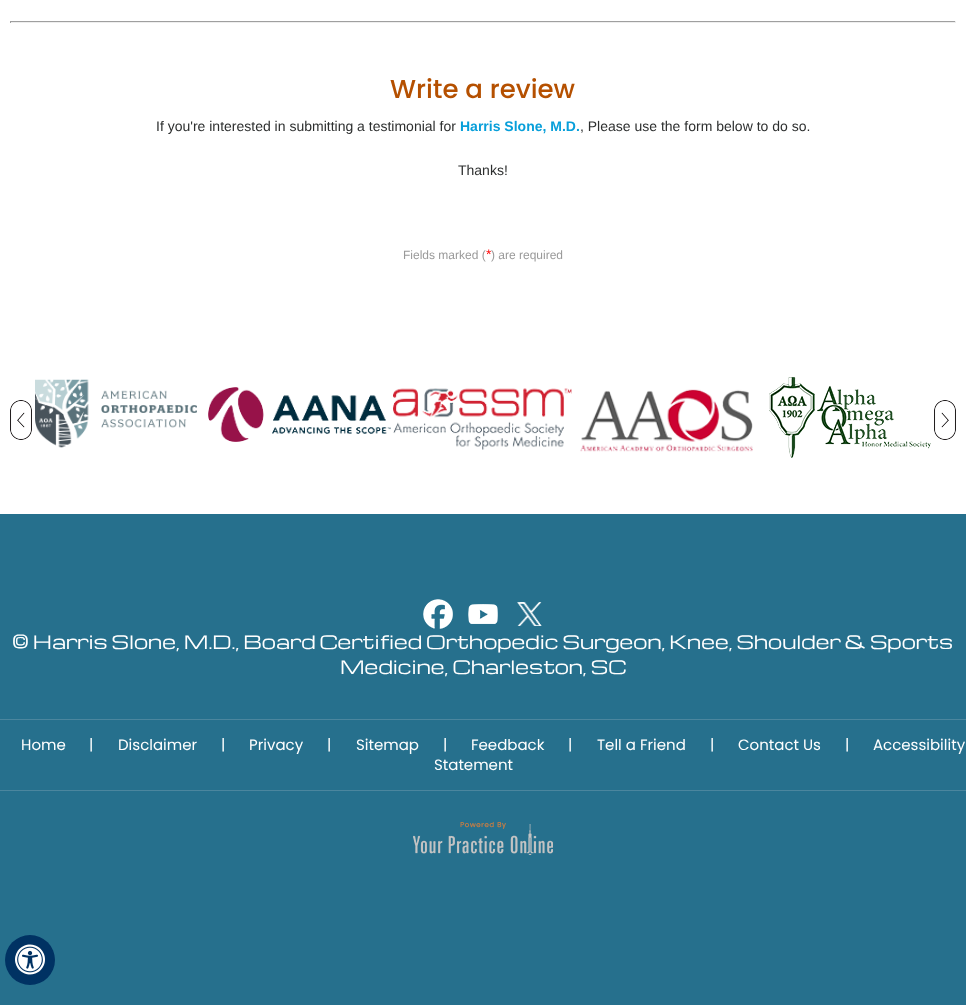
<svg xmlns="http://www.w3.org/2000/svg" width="966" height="1005">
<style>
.a{font:500 26px Poppins;fill:#b55000}
.b{font:14px Liberation Sans;fill:#2d2f2f}
.c{font:bold 14px Liberation Sans;fill:#089fda}
.d{font:12px Liberation Sans;fill:#999}
.e{font:14px Liberation Sans;fill:#f00}
.f{font:18px Michroma;fill:#fff}
.g{font:15px Poppins;fill:#fff}
</style>
<rect width="100%" height="100%" fill="#fff"/>
<path fill="#9f9f9f" d="M10 21h946v1H10z"/>
<path fill="#eee" d="M955 21h1v2H955z"/>
<path fill="#eee" d="M10 22h946v1H10z"/>
<path fill="#9f9f9f" d="M10 21h1v2H10z"/>
<image href="1.png" x="10" y="400" width="22" height="40"/>
<image href="2.png" x="35" y="379" width="162" height="69"/>
<image href="3.png" x="208" y="387" width="183" height="55"/>
<image href="4.png" x="393" y="388" width="179" height="62"/>
<image href="5.png" x="580" y="389" width="173" height="63"/>
<image href="6.png" x="769" y="377" width="162" height="81"/>
<image href="7.png" x="934" y="400" width="22" height="40"/>
<path fill="#26708d" d="M0 514h966v491H0z"/>
<image href="8.png" x="423" y="599" width="30" height="30"/>
<image href="9.png" x="468" y="604" width="30" height="20"/>
<image href="10.png" x="517" y="602" width="25" height="24"/>
<path fill="#4b869e" d="M0 719h966v1H0z"/>
<path fill="#4b869e" d="M0 790h966v1H0z"/>
<image href="11.png" x="413" y="821" width="140" height="34"/>
<circle fill="#003263" cx="30" cy="960" r="25"/>
<image href="12.png" x="15" y="944" width="30" height="31"/>
<text class="a" x="390" y="98">Write a review</text>
<text class="b" x="156" y="131">If you're interested in submitting a testimonial for</text>
<text class="c" x="460" y="131">Harris Slone, M.D.</text>
<text class="b" x="580" y="131">, Please use the form below to do so.</text>
<text class="b" x="458" y="175">Thanks!</text>
<text class="d" x="403" y="259">Fields marked (</text>
<text class="e" x="486" y="259">*</text>
<text class="d" x="491" y="259">) are required</text>
<text class="f" x="12" y="649">© Harris Slone, M.D., Board Certified Orthopedic Surgeon, Knee, Shoulder &amp; Sports</text>
<text class="f" x="340" y="674">Medicine, Charleston, SC</text>
<text class="g" x="21" y="750">Home</text>
<text class="g" x="89" y="750">|</text>
<text class="g" x="118" y="750">Disclaimer</text>
<text class="g" x="221" y="750">|</text>
<text class="g" x="249" y="750">Privacy</text>
<text class="g" x="327" y="750">|</text>
<text class="g" x="356" y="750">Sitemap</text>
<text class="g" x="443" y="750">|</text>
<text class="g" x="471" y="750">Feedback</text>
<text class="g" x="568" y="750">|</text>
<text class="g" x="597" y="750">Tell a Friend</text>
<text class="g" x="710" y="750">|</text>
<text class="g" x="738" y="750">Contact Us</text>
<text class="g" x="845" y="750">|</text>
<text class="g" x="873" y="750">Accessibility</text>
<text class="g" x="434" y="770">Statement</text>
</svg>
